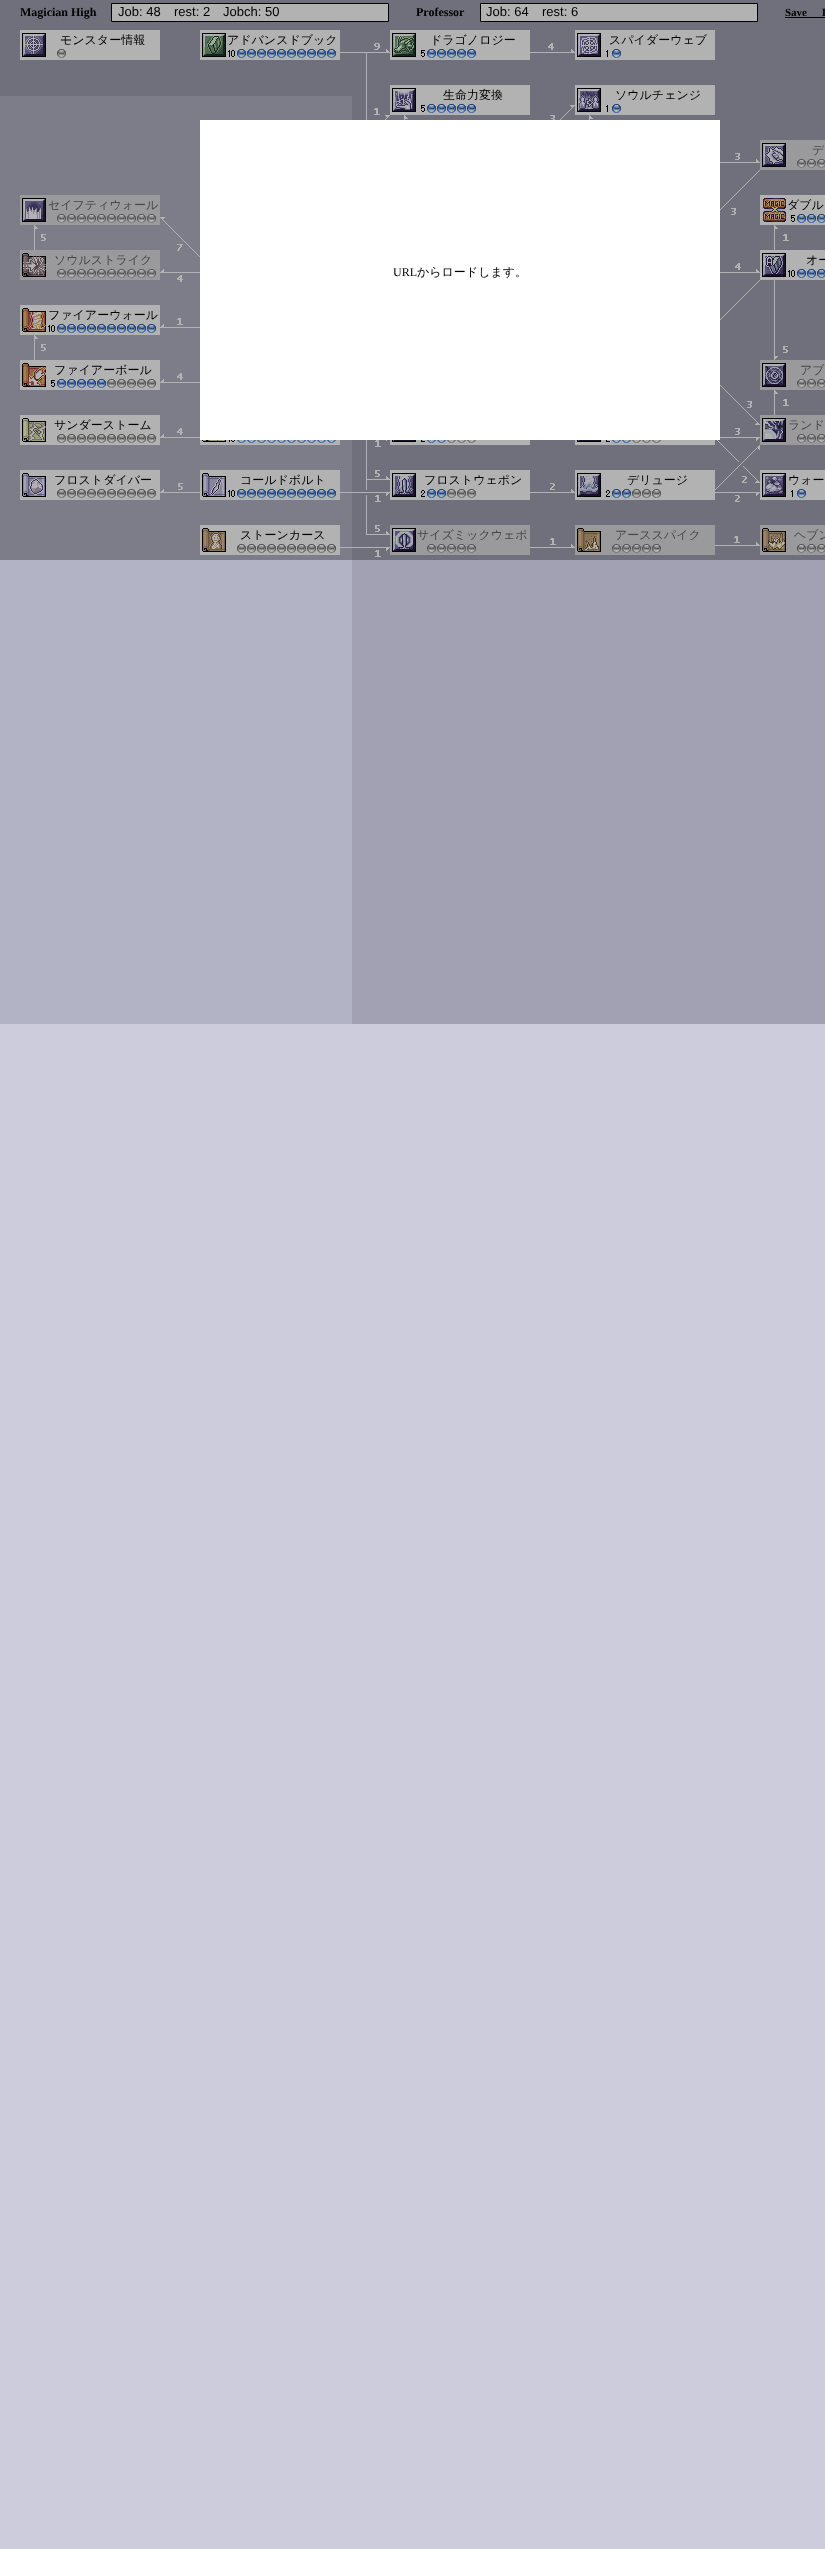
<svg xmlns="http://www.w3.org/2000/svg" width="825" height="2549">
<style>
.a{font:bold 12px Liberation Serif;fill:#000}
.b{font:13px Liberation Sans;fill:#000}
.c{font:bold 11px Liberation Serif;fill:#000}
.d{font:500 12px WenQuanYi Zen Hei;fill:#000}
.e{font:500 12px WenQuanYi Zen Hei;fill:#666}
.f{font:12px Liberation Serif;fill:#000}
</style>
<defs>
<clipPath id="clip1"><path d="M46 32h113v13H46z"/></clipPath>
<clipPath id="clip2"><path d="M226 32h113v13H226z"/></clipPath>
<clipPath id="clip3"><path d="M601 32h113v13H601z"/></clipPath>
<clipPath id="clip4"><path d="M416 87h113v13H416z"/></clipPath>
<clipPath id="clip5"><path d="M601 87h113v13H601z"/></clipPath>
<clipPath id="clip6"><path d="M46 197h113v13H46z"/></clipPath>
<clipPath id="clip7"><path d="M786 197h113v13H786z"/></clipPath>
<clipPath id="clip8"><path d="M46 252h113v13H46z"/></clipPath>
<clipPath id="clip9"><path d="M46 307h113v13H46z"/></clipPath>
<clipPath id="clip10"><path d="M46 362h113v13H46z"/></clipPath>
<clipPath id="clip11"><path d="M46 417h113v13H46z"/></clipPath>
<clipPath id="clip12"><path d="M786 417h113v13H786z"/></clipPath>
<clipPath id="clip13"><path d="M46 472h113v13H46z"/></clipPath>
<clipPath id="clip14"><path d="M226 472h113v13H226z"/></clipPath>
<clipPath id="clip15"><path d="M416 472h113v13H416z"/></clipPath>
<clipPath id="clip16"><path d="M601 472h113v13H601z"/></clipPath>
<clipPath id="clip17"><path d="M786 472h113v13H786z"/></clipPath>
<clipPath id="clip18"><path d="M226 527h113v13H226z"/></clipPath>
<clipPath id="clip19"><path d="M416 527h113v13H416z"/></clipPath>
<clipPath id="clip20"><path d="M601 527h113v13H601z"/></clipPath>
</defs>
<rect width="100%" height="100%" fill="#ccd"/>
<image href="1.png" x="0" y="0" width="825" height="1024"/>
<path fill="#fff" stroke="#000" d="M111.5 3.5h277v18H111.5z"/>
<path fill="#fff" stroke="#000" d="M480.5 3.5h277v18H480.5z"/>
<path fill="#000" d="M785 17h40v1H785z"/>
<path fill="#fff" d="M20 30h140v30H20z"/>
<image href="2.png" x="22" y="33" width="24" height="24"/>
<image href="3.png" x="57" y="49" width="9" height="9"/>
<path fill="#fff" d="M200 30h140v30H200z"/>
<image href="4.png" x="202" y="33" width="24" height="24"/>
<image href="5.png" x="228" y="49" width="108" height="9"/>
<path fill="#fff" d="M390 30h140v30H390z"/>
<image href="6.png" x="392" y="33" width="24" height="24"/>
<image href="7.png" x="421" y="49" width="55" height="9"/>
<path fill="#fff" d="M575 30h140v30H575z"/>
<image href="8.png" x="577" y="33" width="24" height="24"/>
<image href="9.png" x="606" y="49" width="15" height="9"/>
<path fill="#fff" d="M390 85h140v30H390z"/>
<image href="10.png" x="392" y="88" width="24" height="24"/>
<image href="7.png" x="421" y="104" width="55" height="9"/>
<path fill="#fff" d="M575 85h140v30H575z"/>
<image href="11.png" x="577" y="88" width="24" height="24"/>
<image href="9.png" x="606" y="104" width="15" height="9"/>
<path fill="#dddde0" d="M760 140h65v30H760z"/>
<image href="12.png" x="762" y="143" width="24" height="24"/>
<image href="13.png" x="797" y="159" width="28" height="9"/>
<path fill="#dddde0" d="M20 195h140v30H20z"/>
<image href="14.png" x="22" y="198" width="24" height="24"/>
<image href="15.png" x="57" y="214" width="99" height="9"/>
<path fill="#fff" d="M760 195h65v30H760z"/>
<image href="16.png" x="762" y="198" width="24" height="24"/>
<image href="17.png" x="791" y="214" width="34" height="9"/>
<path fill="#dddde0" d="M20 250h140v30H20z"/>
<image href="18.png" x="22" y="253" width="24" height="24"/>
<image href="15.png" x="57" y="269" width="99" height="9"/>
<path fill="#fff" d="M760 250h65v30H760z"/>
<image href="19.png" x="762" y="253" width="24" height="24"/>
<image href="20.png" x="788" y="269" width="37" height="9"/>
<path fill="#fff" d="M20 305h140v30H20z"/>
<image href="21.png" x="22" y="308" width="24" height="24"/>
<image href="5.png" x="48" y="324" width="108" height="9"/>
<path fill="#fff" d="M20 360h140v30H20z"/>
<image href="22.png" x="22" y="363" width="24" height="24"/>
<image href="23.png" x="51" y="379" width="105" height="9"/>
<path fill="#dddde0" d="M760 360h65v30H760z"/>
<image href="24.png" x="762" y="363" width="24" height="24"/>
<image href="13.png" x="797" y="379" width="28" height="9"/>
<path fill="#fff" d="M20 415h140v30H20z"/>
<image href="25.png" x="22" y="418" width="24" height="24"/>
<image href="26.png" x="57" y="434" width="99" height="9"/>
<path fill="#dddde0" d="M760 415h65v30H760z"/>
<image href="27.png" x="762" y="418" width="24" height="24"/>
<image href="13.png" x="797" y="434" width="28" height="9"/>
<path fill="#fff" d="M200 440h140v5H200z"/>
<image href="28.png" x="202" y="440" width="24" height="2"/>
<image href="29.png" x="229" y="440" width="107" height="3"/>
<path fill="#fff" d="M390 440h140v5H390z"/>
<image href="30.png" x="392" y="440" width="24" height="2"/>
<image href="31.png" x="421" y="440" width="55" height="3"/>
<path fill="#fff" d="M575 440h140v5H575z"/>
<image href="30.png" x="577" y="440" width="24" height="2"/>
<image href="31.png" x="606" y="440" width="55" height="3"/>
<path fill="#fff" d="M20 470h140v30H20z"/>
<image href="32.png" x="22" y="473" width="24" height="24"/>
<image href="26.png" x="57" y="489" width="99" height="9"/>
<path fill="#fff" d="M200 470h140v30H200z"/>
<image href="33.png" x="202" y="473" width="24" height="24"/>
<image href="5.png" x="228" y="489" width="108" height="9"/>
<path fill="#fff" d="M390 470h140v30H390z"/>
<image href="34.png" x="392" y="473" width="24" height="24"/>
<image href="35.png" x="421" y="489" width="55" height="9"/>
<path fill="#fff" d="M575 470h140v30H575z"/>
<image href="36.png" x="577" y="473" width="24" height="24"/>
<image href="35.png" x="606" y="489" width="55" height="9"/>
<path fill="#fff" d="M760 470h65v30H760z"/>
<image href="37.png" x="762" y="473" width="24" height="24"/>
<image href="9.png" x="791" y="489" width="15" height="9"/>
<path fill="#fff" d="M200 525h140v30H200z"/>
<image href="38.png" x="202" y="528" width="24" height="24"/>
<image href="26.png" x="237" y="544" width="99" height="9"/>
<path fill="#dddde0" d="M390 525h140v30H390z"/>
<image href="39.png" x="392" y="528" width="24" height="24"/>
<image href="40.png" x="427" y="544" width="49" height="9"/>
<path fill="#dddde0" d="M575 525h140v30H575z"/>
<image href="41.png" x="577" y="528" width="24" height="24"/>
<image href="40.png" x="612" y="544" width="49" height="9"/>
<path fill="#dddde0" d="M760 525h65v30H760z"/>
<image href="42.png" x="762" y="528" width="24" height="24"/>
<image href="13.png" x="797" y="544" width="28" height="9"/>
<text class="a" x="20" y="16">Magician High</text>
<text class="b" x="118" y="16">Job: 48</text>
<text class="b" x="174" y="16">rest: 2</text>
<text class="b" x="223" y="16">Jobch: 50</text>
<text class="a" x="416" y="16">Professor</text>
<text class="b" x="486" y="16">Job: 64</text>
<text class="b" x="542" y="16">rest: 6</text>
<text class="c" x="785" y="16">Save</text>
<text class="c" x="822" y="16">L</text>
<g clip-path="url(#clip1)">
<text class="d" x="60" y="44">モンスター情報</text>
</g>
<g clip-path="url(#clip2)">
<text class="d" x="227" y="44">アドバンスドブック</text>
</g>
<text class="d" x="430" y="44">ドラゴノロジー</text>
<g clip-path="url(#clip3)">
<text class="d" x="609" y="44">スパイダーウェブ</text>
</g>
<g clip-path="url(#clip4)">
<text class="d" x="443" y="99">生命力変換</text>
</g>
<g clip-path="url(#clip5)">
<text class="d" x="615" y="99">ソウルチェンジ</text>
</g>
<text class="e" x="812" y="154">デ</text>
<g clip-path="url(#clip6)">
<text class="e" x="48" y="209">セイフティウォール</text>
</g>
<g clip-path="url(#clip7)">
<text class="d" x="787" y="209">ダブル</text>
</g>
<g clip-path="url(#clip8)">
<text class="e" x="54" y="264">ソウルストライク</text>
</g>
<text class="d" x="806" y="264">オー</text>
<g clip-path="url(#clip9)">
<text class="d" x="48" y="319">ファイアーウォール</text>
</g>
<g clip-path="url(#clip10)">
<text class="d" x="54" y="374">ファイアーボール</text>
</g>
<text class="e" x="800" y="374">アブ</text>
<g clip-path="url(#clip11)">
<text class="d" x="54" y="429">サンダーストーム</text>
</g>
<g clip-path="url(#clip12)">
<text class="e" x="788" y="429">ランド</text>
</g>
<g clip-path="url(#clip13)">
<text class="d" x="54" y="484">フロストダイバー</text>
</g>
<g clip-path="url(#clip14)">
<text class="d" x="240" y="484">コールドボルト</text>
</g>
<g clip-path="url(#clip15)">
<text class="d" x="424" y="484">フロストウェポン</text>
</g>
<g clip-path="url(#clip16)">
<text class="d" x="627" y="484">デリュージ</text>
</g>
<g clip-path="url(#clip17)">
<text class="d" x="788" y="484">ウォー</text>
</g>
<g clip-path="url(#clip18)">
<text class="d" x="240" y="539">ストーンカース</text>
</g>
<g clip-path="url(#clip19)">
<text class="e" x="417" y="539">サイズミックウェポ</text>
</g>
<g clip-path="url(#clip20)">
<text class="e" x="615" y="539">アーススパイク</text>
</g>
<text class="e" x="794" y="539">ヘブン</text>
<path fill="#0000004d" d="M0 0h825v560H0z"/>
<path fill="#fff" d="M200 120h520v320H200z"/>
<text class="d" x="417" y="276">からロードします。</text>
<text class="f" x="393" y="276">URL</text>
</svg>
